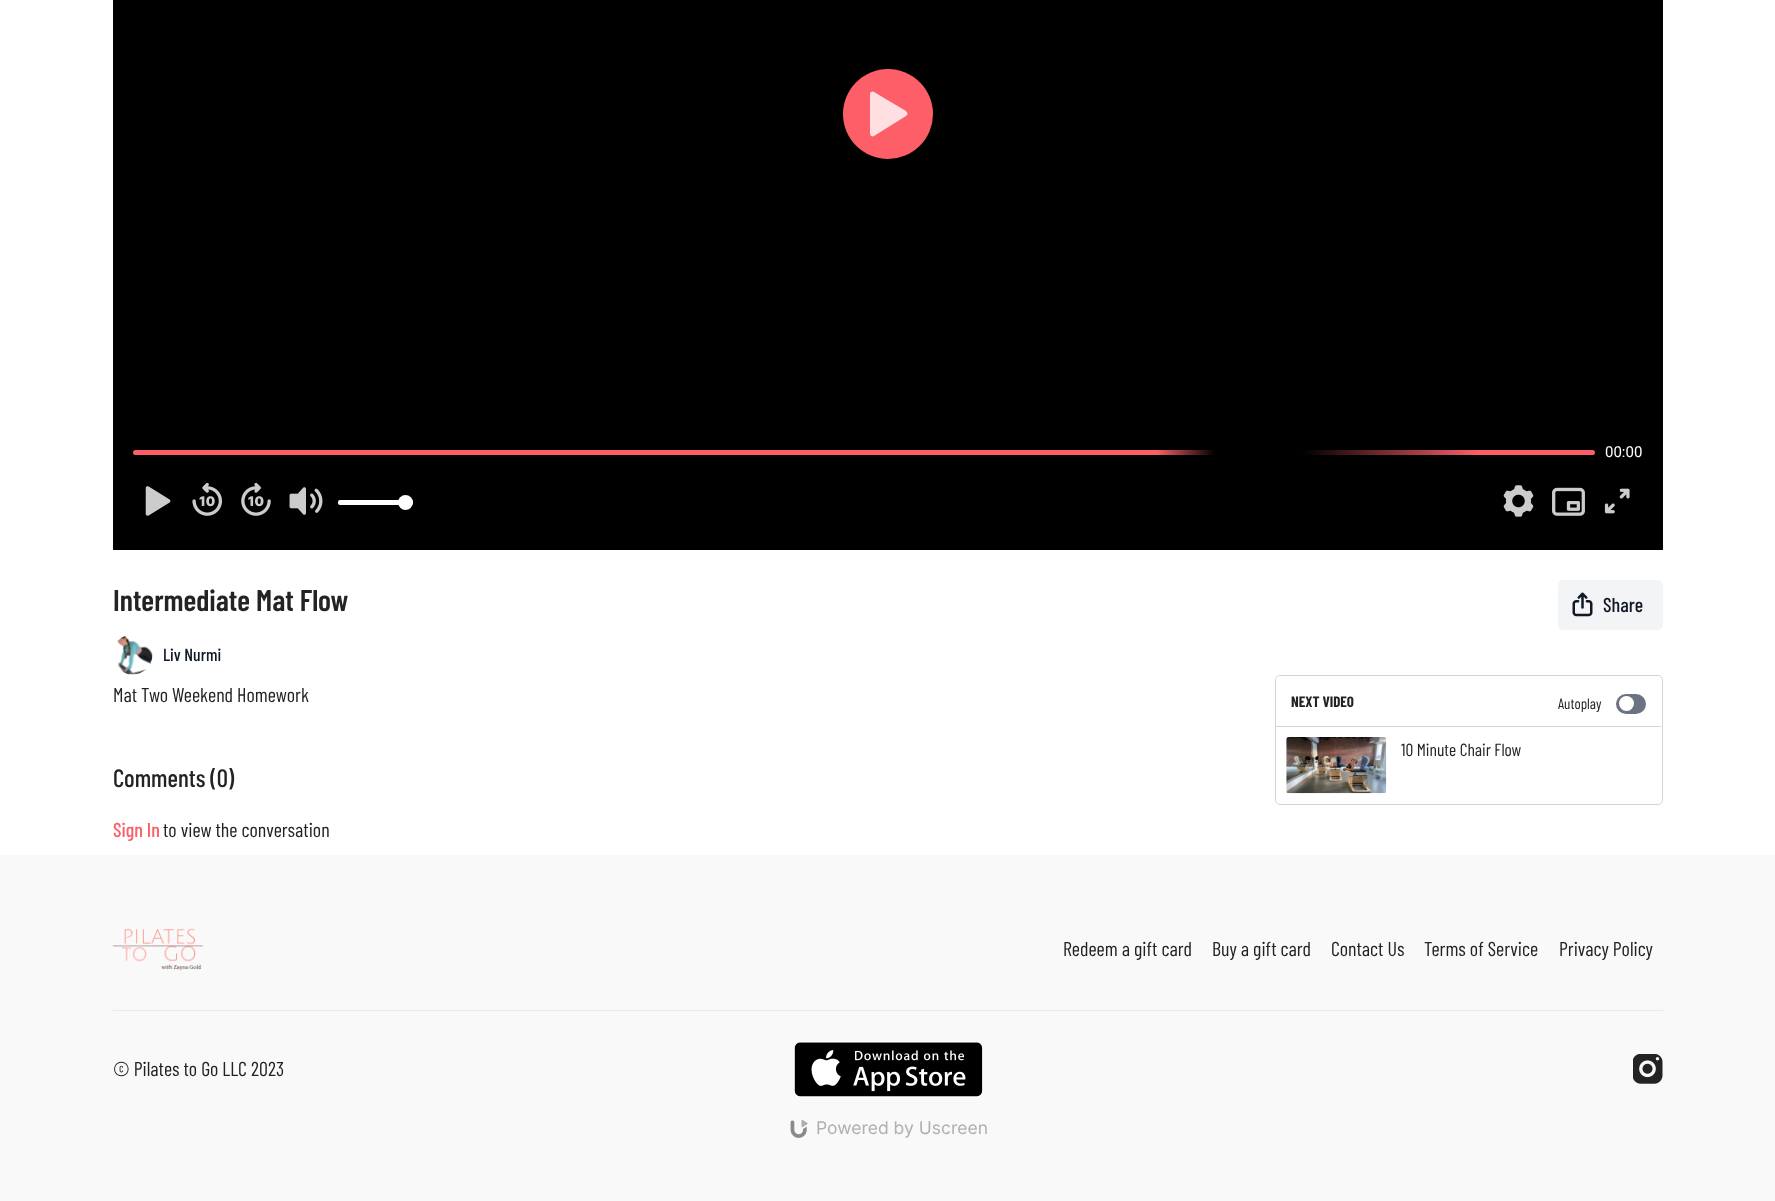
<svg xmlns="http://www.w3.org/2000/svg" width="1775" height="1201">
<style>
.a{font:15px Roboto;fill:#fff}
.b{font:600 30px Barlow Condensed;fill:#232323}
.c{font:500 20px Barlow Condensed;fill:#111827}
.d{font:500 17.5px Barlow Condensed;fill:#111827}
.e{font:20px Barlow Condensed;fill:#232323}
.f{font:500 25px Barlow Condensed;fill:#232323}
.g{font:500 20px Barlow Condensed;fill:#fd5e68}
.h{font:bold 15px Barlow Condensed;fill:#232323}
.i{font:15px Barlow Condensed;fill:#232323}
.j{font:17.5px Barlow Condensed;fill:#232323}
.k{font:17.5px Inter;fill:#b0b0b0}
</style>
<defs>
<linearGradient id="g1" gradientUnits="userSpaceOnUse" x1="133" y1="455" x2="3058" y2="455"><stop offset="0.35" stop-color="#fd5e68"/><stop offset="0.37" stop-color="#000"/><stop offset="0.4" stop-color="#000"/><stop offset="0.46" stop-color="#fd5e68"/><stop offset="1" stop-color="#fd5e68"/></linearGradient>
</defs>
<rect width="100%" height="100%" fill="#fff"/>
<path fill="#000" d="M113 0h1550v550H113z"/>
<circle fill="#fd5e68" cx="888" cy="114" r="45"/>
<path fill="#ffdfe1" d="M874 92c-2-1-4 0-4 2v39c0 3 2 4 4 3l32-20c2-1 2-3 0-5z"/>
<rect fill="url(#g1)" x="133" y="450" width="1462" height="5" rx="2.5"/>
<image href="1.png" x="145" y="486" width="26" height="30"/>
<image href="2.png" x="192" y="482" width="30" height="34"/>
<image href="3.png" x="241" y="482" width="30" height="34"/>
<image href="4.png" x="289" y="487" width="34" height="28"/>
<rect fill="#fff" x="338" y="500" width="75" height="5" rx="2"/>
<circle fill="#fff" cx="405.5" cy="502.5" r="7.5"/>
<image href="5.png" x="1503" y="485" width="31" height="32"/>
<image href="6.png" x="1552" y="487" width="33" height="29"/>
<image href="7.png" x="1604" y="488" width="26" height="26"/>
<rect fill="#f3f4f6" x="1558" y="580" width="105" height="50" rx="5"/>
<image href="8.png" x="1572" y="592" width="21" height="25"/>
<image href="9.png" x="117" y="635" width="36" height="40"/>
<rect fill="none" stroke="#d1d5db" x="1275.5" y="675.5" width="387" height="129" rx="4.5"/>
<path fill="#fff" d="M1280 676h377c2 0 4 2 4 4v46h-385v-46c0-2 2-4 4-4z"/>
<path fill="#d1d5db" d="M1276 726h385v1H1276z"/>
<rect fill="#6b7280" x="1616" y="694" width="30" height="20" rx="10"/>
<circle fill="#fff" cx="1626.5" cy="703.5" r="7.5"/>
<image href="10.png" x="1286" y="737" width="101" height="57"/>
<path fill="#f9f9f9" d="M0 855h1775v346H0z"/>
<image href="11.png" x="112" y="928" width="92" height="43"/>
<path fill="#e9e9e9" d="M113 1010h1550v1H113z"/>
<image href="12.png" x="794" y="1041" width="189" height="57"/>
<image href="13.png" x="1633" y="1054" width="30" height="30"/>
<image href="14.png" x="790" y="1119" width="18" height="19"/>
<text class="a" x="1605" y="457">00:00</text>
<text class="b" x="113" y="611">Intermediate Mat Flow</text>
<text class="c" x="1603" y="612">Share</text>
<text class="d" x="163" y="661">Liv Nurmi</text>
<text class="e" x="113" y="702">Mat Two Weekend Homework</text>
<text class="f" x="113" y="787">Comments (0)</text>
<text class="g" x="113" y="837">Sign In</text>
<text class="e" x="163" y="837">to view the conversation</text>
<text class="h" x="1291" y="707">NEXT VIDEO</text>
<text class="i" x="1558" y="709">Autoplay</text>
<text class="j" x="1401" y="756">10 Minute Chair Flow</text>
<text class="e" x="1063" y="956">Redeem a gift card</text>
<text class="e" x="1212" y="956">Buy a gift card</text>
<text class="e" x="1331" y="956">Contact Us</text>
<text class="e" x="1424" y="956">Terms of Service</text>
<text class="e" x="1559" y="956">Privacy Policy</text>
<text class="e" x="113" y="1076">© Pilates to Go LLC 2023</text>
<text class="k" x="816" y="1134">Powered by Uscreen</text>
</svg>
